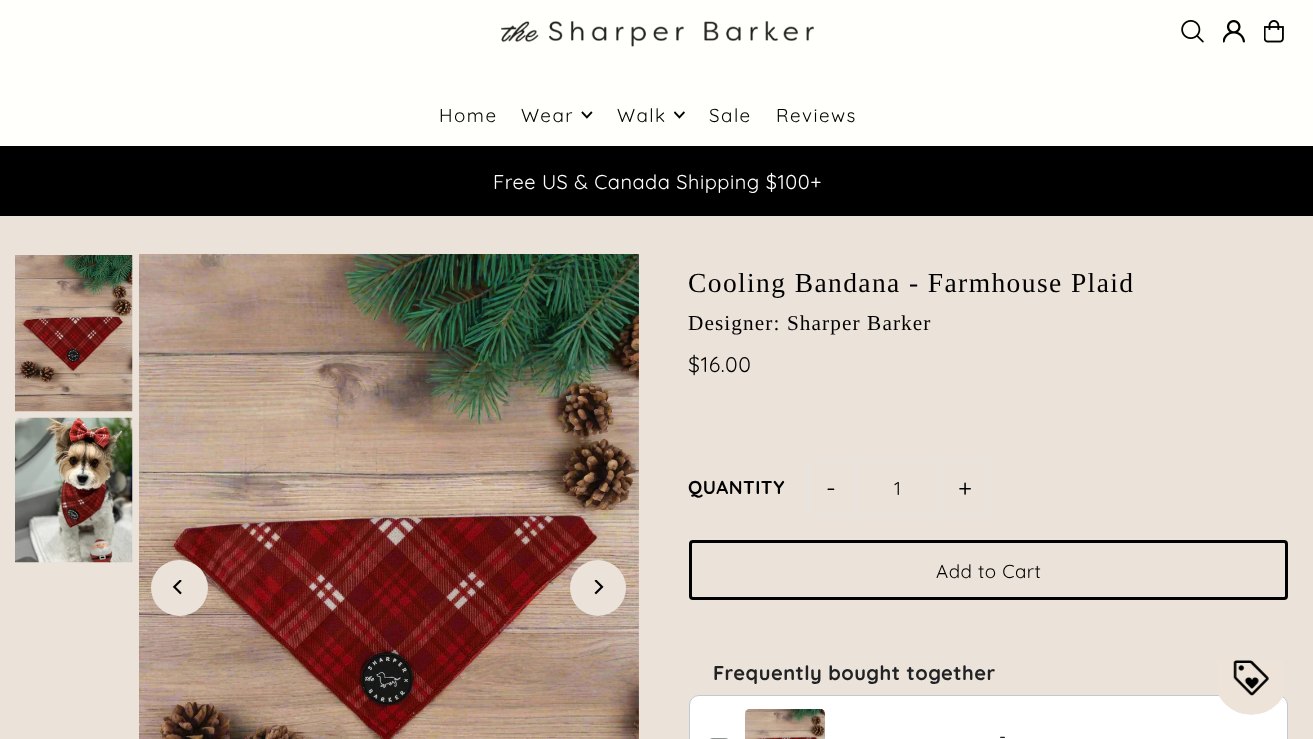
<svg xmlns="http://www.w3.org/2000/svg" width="1313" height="739">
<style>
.a{font:18.75px Quicksand;letter-spacing:1.5px;fill:#000}
.b{font:20px Quicksand;letter-spacing:0.5px;fill:#fff}
.c{font:27.5px Liberation Serif;letter-spacing:1.4px;fill:#000}
.d{font:21.25px Liberation Serif;letter-spacing:1.1px;fill:#000}
.e{font:21.25px Quicksand;letter-spacing:0.5px;fill:#000}
.f{font:bold 18.75px Quicksand;letter-spacing:0.5px;fill:#000}
.g{font:25px Quicksand;letter-spacing:1px;fill:#000}
.h{font:18.75px Quicksand;letter-spacing:0.5px;fill:#000}
.i{font:bold 20px Quicksand;letter-spacing:0.5px;fill:#202223}
.j{font:18px Quicksand;letter-spacing:1px;fill:#202223}
</style>
<rect width="100%" height="100%" fill="#ebe2da"/>
<path fill="#fffffb" d="M0 0h1313v146H0z"/>
<image href="1.png" x="501" y="21" width="313" height="26"/>
<image href="2.png" x="1181" y="20" width="23" height="23"/>
<image href="3.png" x="1223" y="20" width="22" height="23"/>
<image href="4.png" x="1264" y="20" width="20" height="23"/>
<image href="5.png" x="581" y="111" width="12" height="8"/>
<image href="6.png" x="674" y="111" width="11" height="8"/>
<path fill="#000" d="M0 146h1313v70H0z"/>
<image href="7.png" x="15" y="255" width="118" height="157"/>
<image href="8.png" x="15" y="417" width="118" height="146"/>
<image href="9.png" x="139" y="254" width="500" height="485"/>
<rect fill="#ebe2da" x="151" y="560" width="57" height="56" rx="28"/>
<image href="10.png" x="172" y="580" width="10" height="15"/>
<circle fill="#ebe2da" cx="598" cy="588" r="28"/>
<image href="11.png" x="594" y="580" width="10" height="15"/>
<path fill="#e5e5e5" d="M808 460h47v1H808z"/>
<path fill="#e5e5e5" d="M808 514h47v1H808z"/>
<path fill="#e5e5e5" d="M808 460h1v55H808z"/>
<path fill="none" stroke="#e5e5e5" d="M854.5 460.5h86v54H854.5z"/>
<path fill="#e5e5e5" d="M941 460h48v1H941z"/>
<path fill="#e5e5e5" d="M988 460h1v55H988z"/>
<path fill="#e5e5e5" d="M941 514h48v1H941z"/>
<rect fill="none" stroke="#000" stroke-width="3" x="690.5" y="541.5" width="596" height="57" rx="2.5"/>
<rect fill="#fff" stroke="#c5c8d1" x="689.5" y="695.5" width="598" height="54" rx="9.5"/>
<rect fill="none" stroke="#909191" stroke-width="3" x="709.5" y="739.5" width="19" height="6" rx="3.5"/>
<image href="12.png" x="745" y="709" width="80" height="30"/>
<image href="13.png" x="1218" y="660" width="65" height="55"/>
<text class="a" x="439" y="122">Home</text>
<text class="a" x="521" y="122">Wear</text>
<text class="a" x="617" y="122">Walk</text>
<text class="a" x="709" y="122">Sale</text>
<text class="a" x="776" y="122">Reviews</text>
<text class="b" x="493" y="189">Free US &amp; Canada Shipping $100+</text>
<text class="c" x="688" y="292">Cooling Bandana - Farmhouse Plaid</text>
<text class="d" x="688" y="330">Designer: Sharper Barker</text>
<text class="e" x="688" y="372">$16.00</text>
<text class="f" x="688" y="494">QUANTITY</text>
<text class="g" x="826" y="497">-</text>
<text class="h" x="894" y="495">1</text>
<text class="g" x="958" y="497">+</text>
<text class="h" x="936" y="578">Add to Cart</text>
<text class="i" x="713" y="680">Frequently bought together</text>
<text class="j" x="999" y="743">-</text>
</svg>
